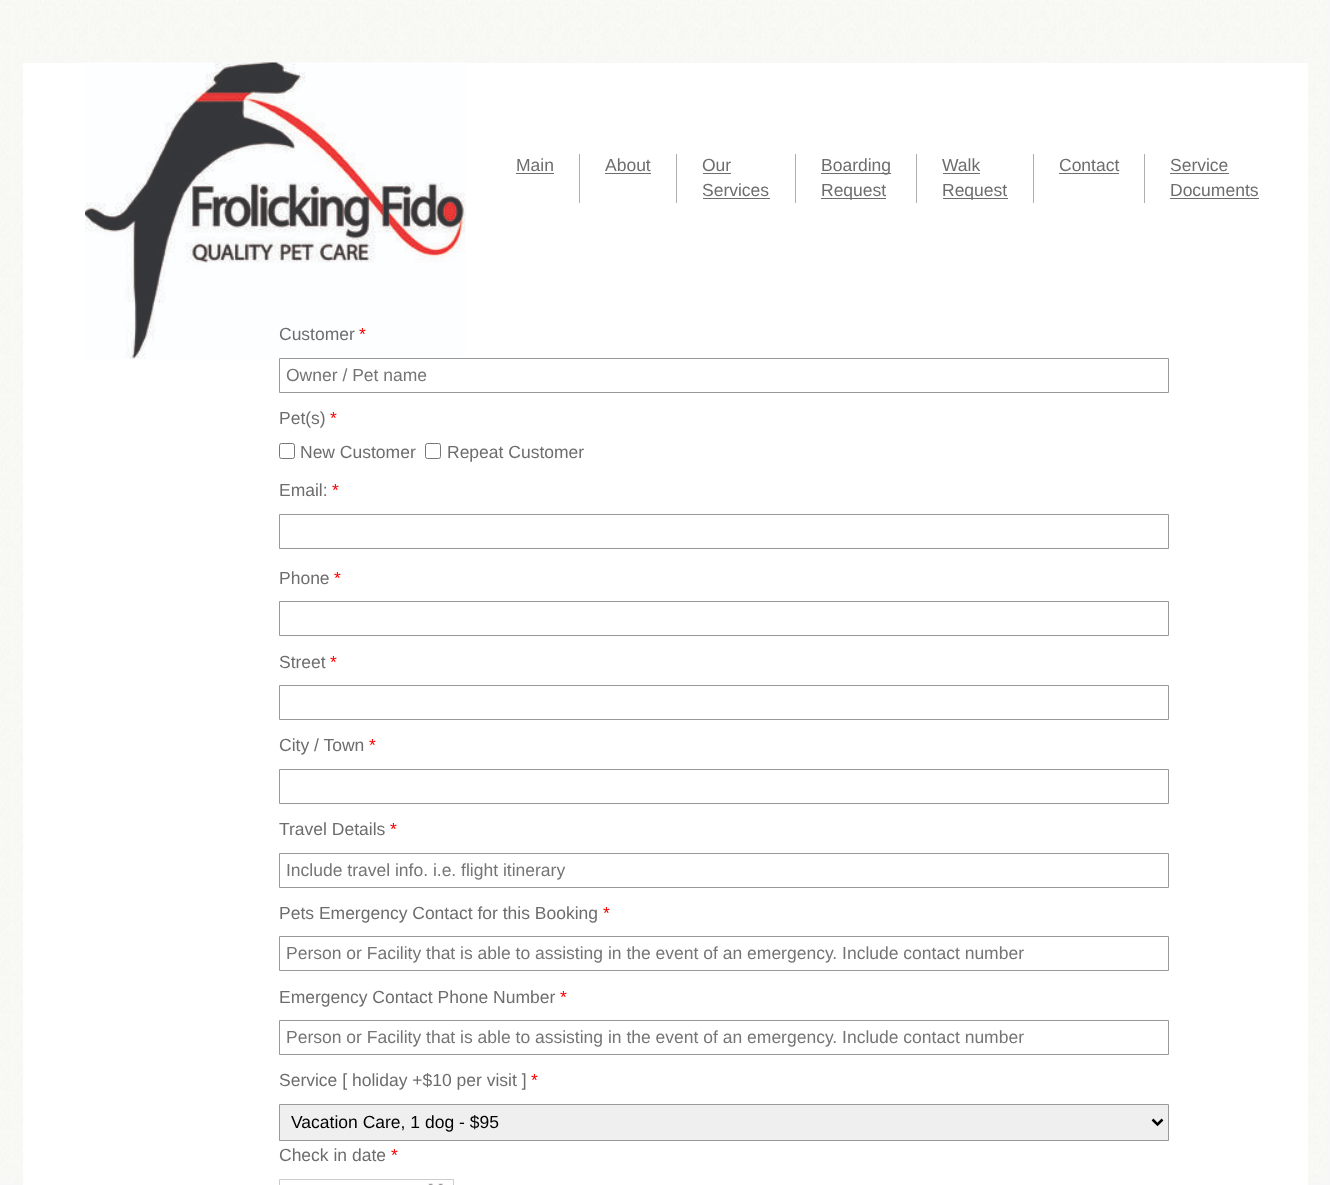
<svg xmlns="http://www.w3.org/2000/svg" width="1330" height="1185">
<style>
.a{font:17.5px Liberation Sans;fill:#6d6d6d}
.b{font:17.5px Liberation Sans;fill:#f00}
.c{font:17.5px Liberation Sans;fill:#757575}
.d{font:17.5px Liberation Sans;fill:#000}
</style>
<rect width="100%" height="100%" fill="#f7f7f7"/>
<image href="1.png" x="0" y="0" width="1329" height="1183"/>
<path fill="#fff" d="M23 63h1285v1122H23z"/>
<image href="2.png" x="85" y="62" width="381" height="297"/>
<path fill="#aeaeae" d="M579 154h1v49H579z"/>
<path fill="#6d6d6d" d="M516 173h38v1H516z"/>
<path fill="#aeaeae" d="M676 154h1v49H676z"/>
<path fill="#6d6d6d" d="M605 173h46v1H605z"/>
<path fill="#aeaeae" d="M795 154h1v49H795z"/>
<path fill="#6d6d6d" d="M703 173h28v1H703z"/>
<path fill="#6d6d6d" d="M703 198h67v1H703z"/>
<path fill="#aeaeae" d="M916 154h1v49H916z"/>
<path fill="#6d6d6d" d="M821 173h70v1H821z"/>
<path fill="#6d6d6d" d="M821 198h65v1H821z"/>
<path fill="#aeaeae" d="M1033 154h1v49H1033z"/>
<path fill="#6d6d6d" d="M943 173h37v1H943z"/>
<path fill="#6d6d6d" d="M943 198h65v1H943z"/>
<path fill="#aeaeae" d="M1144 154h1v49H1144z"/>
<path fill="#6d6d6d" d="M1059 173h60v1H1059z"/>
<path fill="#6d6d6d" d="M1170 173h59v1H1170z"/>
<path fill="#6d6d6d" d="M1170 198h89v1H1170z"/>
<path fill="none" stroke="#999" d="M279.5 358.5h889v34H279.5z"/>
<rect fill="none" stroke="#767676" x="279.5" y="443.5" width="15" height="15" rx="2"/>
<rect fill="none" stroke="#767676" x="425.5" y="443.5" width="15" height="15" rx="2"/>
<path fill="none" stroke="#999" d="M279.5 514.5h889v34H279.5z"/>
<path fill="none" stroke="#999" d="M279.5 601.5h889v34H279.5z"/>
<path fill="none" stroke="#999" d="M279.5 685.5h889v34H279.5z"/>
<path fill="none" stroke="#999" d="M279.5 769.5h889v34H279.5z"/>
<path fill="none" stroke="#999" d="M279.5 853.5h889v34H279.5z"/>
<path fill="none" stroke="#999" d="M279.5 936.5h889v34H279.5z"/>
<path fill="none" stroke="#999" d="M279.5 1020.5h889v34H279.5z"/>
<path fill="#efefef" stroke="#999" d="M279.5 1104.5h889v36H279.5z"/>
<path fill="none" stroke="#000" stroke-width="2.5" d="M1152.5 1119.5l5 5l5-5"/>
<path fill="none" stroke="#ccc" d="M279.5 1179.5h174v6H279.5z"/>
<image href="3.png" x="428" y="1183" width="15" height="2"/>
<text class="a" x="516" y="171">Main</text>
<text class="a" x="605" y="171">About</text>
<text class="a" x="702" y="171">Our</text>
<text class="a" x="702" y="196">Services</text>
<text class="a" x="821" y="171">Boarding</text>
<text class="a" x="821" y="196">Request</text>
<text class="a" x="942" y="171">Walk</text>
<text class="a" x="942" y="196">Request</text>
<text class="a" x="1059" y="171">Contact</text>
<text class="a" x="1170" y="171">Service</text>
<text class="a" x="1170" y="196">Documents</text>
<text class="a" x="279" y="340">Customer</text>
<text class="b" x="359" y="340">*</text>
<text class="c" x="286" y="381">Owner / Pet name</text>
<text class="a" x="279" y="424">Pet(s)</text>
<text class="b" x="330" y="424">*</text>
<text class="a" x="300" y="458">New Customer</text>
<text class="a" x="447" y="458">Repeat Customer</text>
<text class="a" x="279" y="496">Email:</text>
<text class="b" x="332" y="496">*</text>
<text class="a" x="279" y="584">Phone</text>
<text class="b" x="334" y="584">*</text>
<text class="a" x="279" y="668">Street</text>
<text class="b" x="330" y="668">*</text>
<text class="a" x="279" y="751">City / Town</text>
<text class="b" x="369" y="751">*</text>
<text class="a" x="279" y="835">Travel Details</text>
<text class="b" x="390" y="835">*</text>
<text class="c" x="286" y="876">Include travel info. i.e. flight itinerary</text>
<text class="a" x="279" y="919">Pets Emergency Contact for this Booking</text>
<text class="b" x="603" y="919">*</text>
<text class="c" x="286" y="959">Person or Facility that is able to assisting in the event of an emergency. Include contact number</text>
<text class="a" x="279" y="1003">Emergency Contact Phone Number</text>
<text class="b" x="560" y="1003">*</text>
<text class="c" x="286" y="1043">Person or Facility that is able to assisting in the event of an emergency. Include contact number</text>
<text class="a" x="279" y="1086">Service [ holiday +$10 per visit ]</text>
<text class="b" x="531" y="1086">*</text>
<text class="d" x="291" y="1128">Vacation Care, 1 dog - $95</text>
<text class="a" x="279" y="1161">Check in date</text>
<text class="b" x="391" y="1161">*</text>
</svg>
